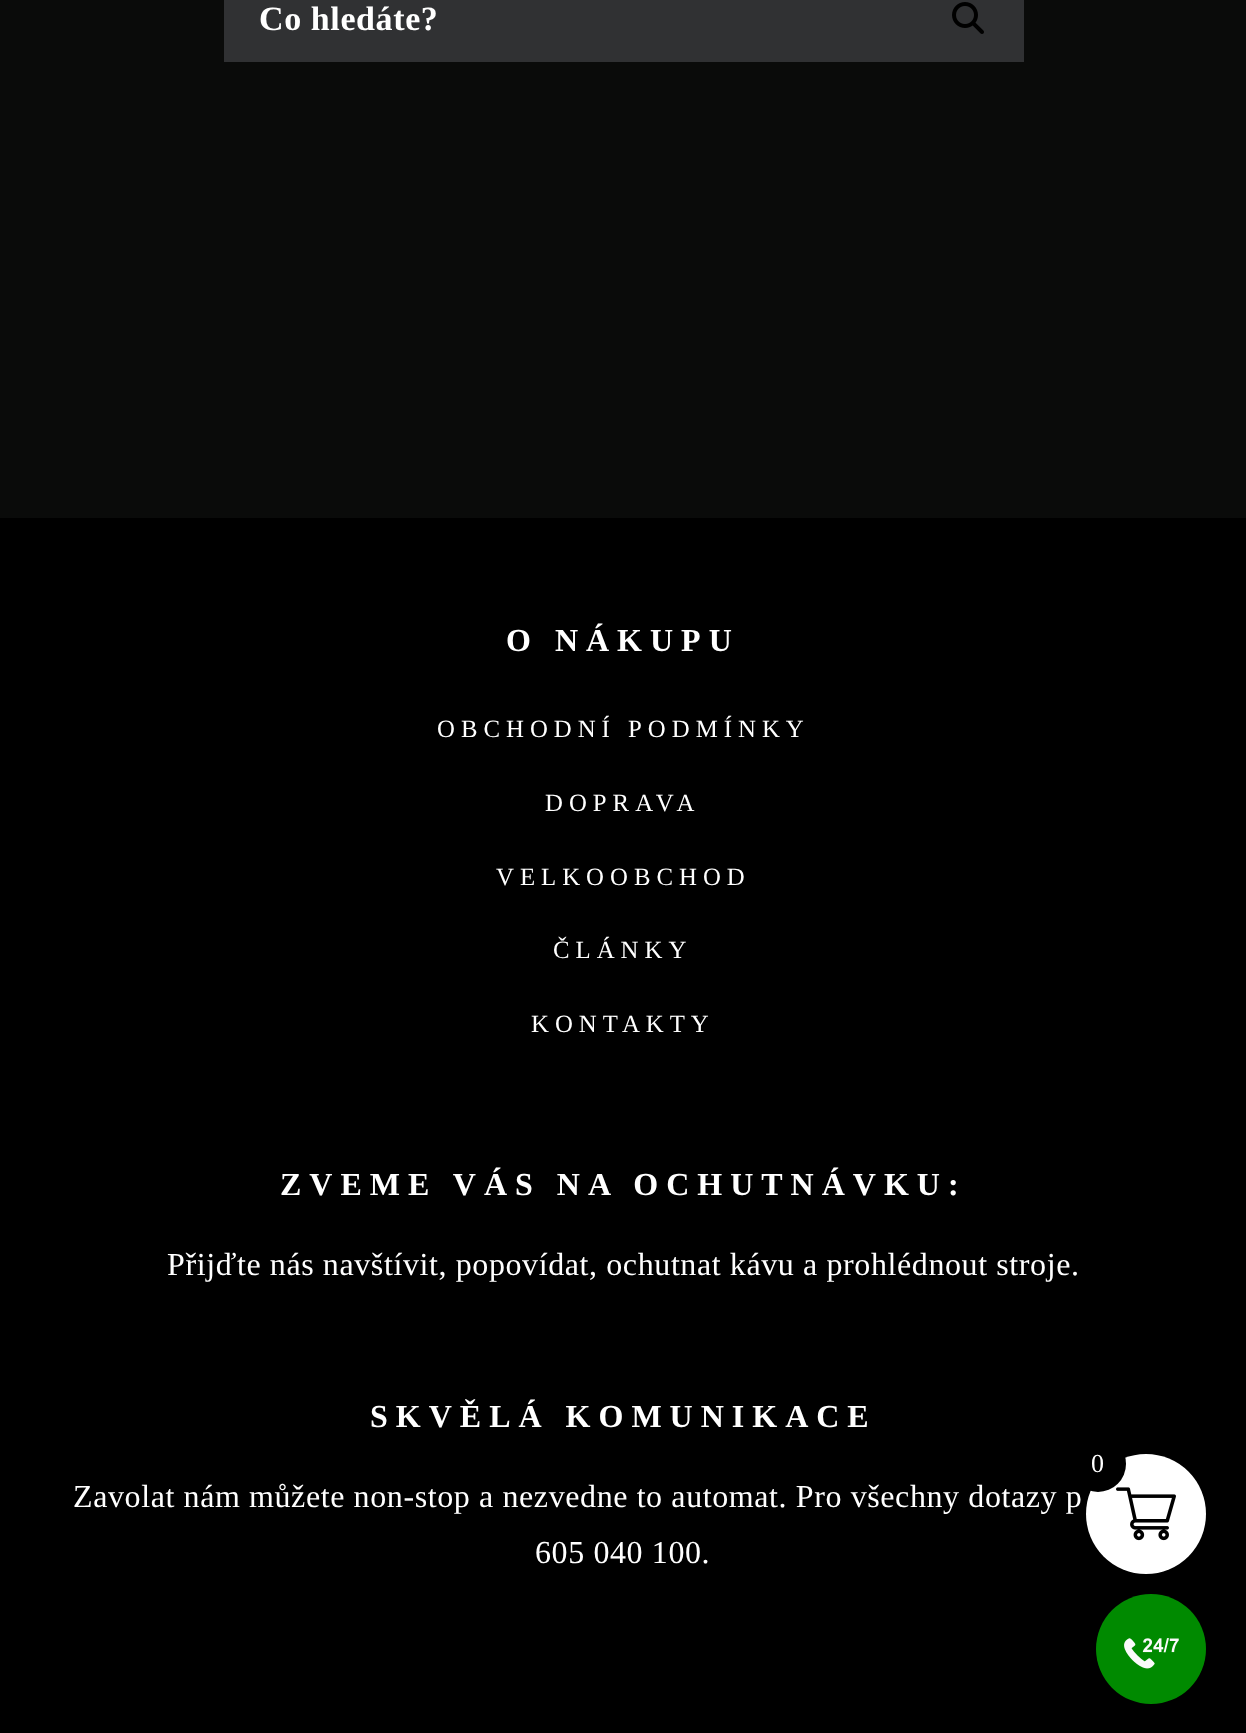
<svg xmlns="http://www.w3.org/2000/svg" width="1246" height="1733">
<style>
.a{font:bold 34px Liberation Serif;letter-spacing:0.6px;fill:#fff}
.b{font:bold 32px Liberation Serif;letter-spacing:8px;fill:#fff}
.c{font:24.8px Liberation Serif;letter-spacing:6px;fill:#fff}
.d{font:32px Liberation Serif;letter-spacing:0.6px;fill:#fff}
.e{font:26px Liberation Serif;letter-spacing:0.6px;fill:#fff}
</style>
<rect width="100%" height="100%" fill="#0a0b0a"/>
<path fill="#303133" d="M224 0h800v62H224z"/>
<image href="1.png" x="952" y="2" width="32" height="32"/>
<path fill="#000" d="M0 518h1246v1215H0z"/>
<circle fill="#fff" cx="1146" cy="1514" r="60"/>
<image href="2.png" x="1116" y="1487" width="60" height="54"/>
<circle fill="#008a00" cx="1151" cy="1649" r="55"/>
<image href="3.png" x="1124" y="1638" width="55" height="31"/>
<text class="a" x="259" y="30">Co hledáte?</text>
<text class="b" x="506" y="651">O NÁKUPU</text>
<text class="c" x="437" y="737">OBCHODNÍ PODMÍNKY</text>
<text class="c" x="545" y="811">DOPRAVA</text>
<text class="c" x="496" y="885">VELKOOBCHOD</text>
<text class="c" x="553" y="958">ČLÁNKY</text>
<text class="c" x="531" y="1032">KONTAKTY</text>
<text class="b" x="280" y="1195">ZVEME VÁS NA OCHUTNÁVKU:</text>
<text class="d" x="167" y="1275">Přijďte nás navštívit, popovídat, ochutnat kávu a prohlédnout stroje.</text>
<text class="b" x="370" y="1427">SKVĚLÁ KOMUNIKACE</text>
<text class="d" x="73" y="1507">Zavolat nám můžete non-stop a nezvedne to automat. Pro všechny dotazy p</text>
<text class="d" x="535" y="1563">605 040 100.</text>
<circle fill="#000" cx="1098" cy="1464" r="28"/>
<text class="e" x="1091" y="1472">0</text>
</svg>
